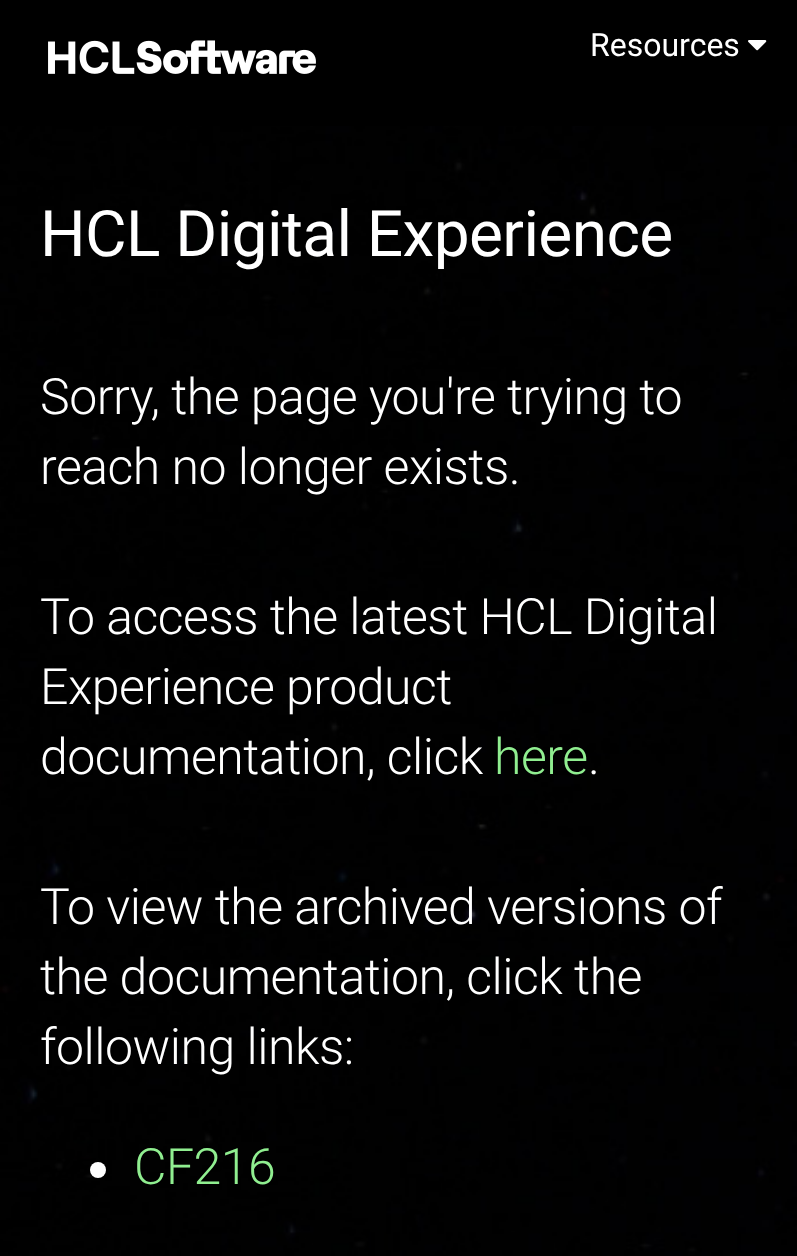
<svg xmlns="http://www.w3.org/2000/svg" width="797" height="1256">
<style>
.a{font:32px Roboto;fill:#fff}
.b{font:64px Roboto;letter-spacing:-0.6px;fill:#fff}
.c{font:300 50px Roboto;letter-spacing:-0.5px;fill:#fff}
.d{font:300 50px Roboto;letter-spacing:-0.5px;fill:#90ee90}
</style>
<rect width="100%" height="100%" fill="#fff"/>
<path fill="#000" d="M0 0h797v126H0z"/>
<image href="1.png" x="48" y="40" width="268" height="34"/>
<image href="2.png" x="748" y="40" width="19" height="11"/>
<image href="3.png" x="0" y="126" width="797" height="1130"/>
<circle fill="#fff" cx="98" cy="1170" r="8"/>
<text class="a" x="590" y="56">Resources</text>
<text class="b" x="40" y="256">HCL Digital Experience</text>
<text class="c" x="40" y="414">Sorry, the page you're trying to</text>
<text class="c" x="40" y="484">reach no longer exists.</text>
<text class="c" x="40" y="634">To access the latest HCL Digital</text>
<text class="c" x="40" y="704">Experience product</text>
<text class="c" x="40" y="774">documentation, click</text>
<text class="d" x="494" y="774">here</text>
<text class="c" x="588" y="774">.</text>
<text class="c" x="40" y="924">To view the archived versions of</text>
<text class="c" x="40" y="994">the documentation, click the</text>
<text class="c" x="40" y="1064">following links:</text>
<text class="d" x="134" y="1184">CF216</text>
</svg>
